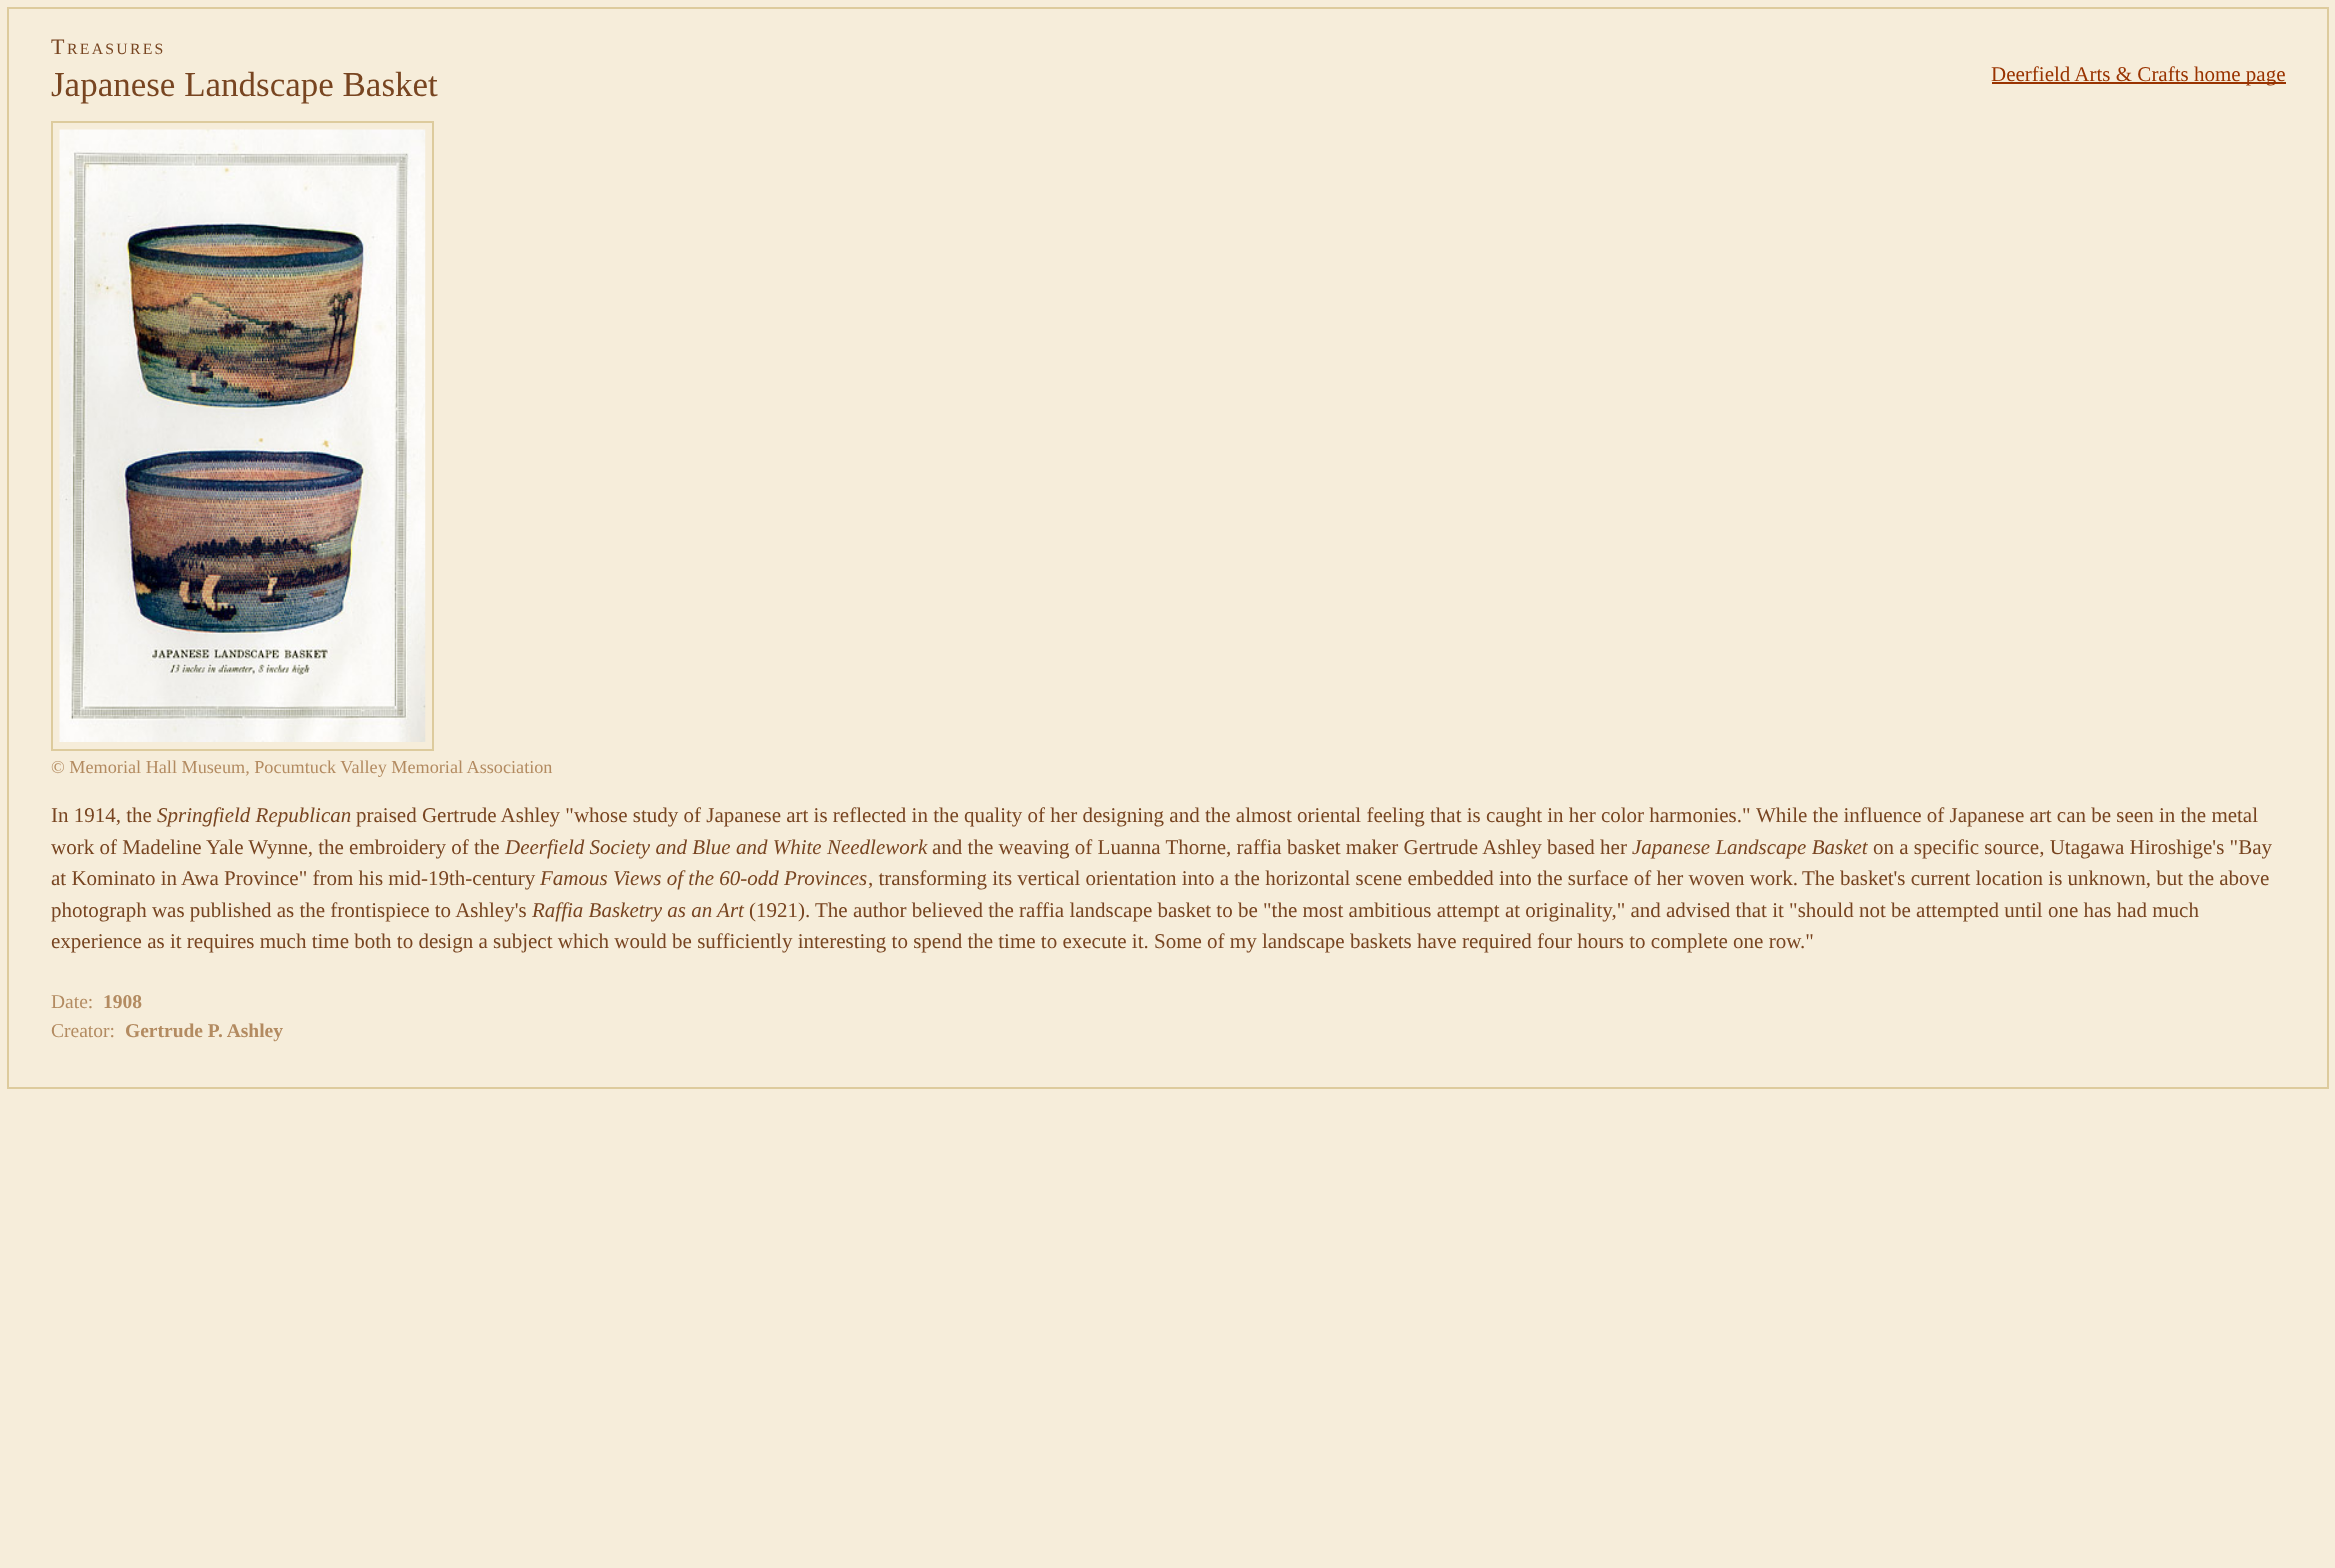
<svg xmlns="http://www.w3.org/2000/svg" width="2335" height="1568">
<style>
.a{font:22px Liberation Serif;letter-spacing:2.25px;fill:#784521}
.b{font:15.75px Liberation Serif;letter-spacing:2.25px;fill:#784521}
.c{font:35px Liberation Serif;fill:#784521}
.d{font:21px Liberation Serif;fill:#930}
.e{font:18.2px Liberation Serif;fill:#b38b61}
.f{font:21px Liberation Serif;fill:#784521}
.g{font:italic 21px Liberation Serif;fill:#784521}
.h{font:19.5px Liberation Serif;fill:#b38b61}
.i{font:bold 19.5px Liberation Serif;fill:#b38b61}
</style>
<rect width="100%" height="100%" fill="#f6edda"/>
<path fill="none" stroke="#ddcb9d" stroke-width="2" d="M8 8h2320v1080H8z"/>
<path fill="#930" d="M1992 82h294v2H1992z"/>
<path fill="none" stroke="#ddcb9d" stroke-width="2" d="M52 122h381v628H52z"/>
<image href="1.png" x="59" y="129" width="367" height="613"/>
<text class="a" x="51" y="54">T</text>
<text class="b" x="67" y="54">REASURES</text>
<text class="c" x="51" y="96">Japanese Landscape Basket</text>
<text class="d" x="1991" y="81">Deerfield Arts &amp; Crafts home page</text>
<text class="e" x="51" y="773">© Memorial Hall Museum, Pocumtuck Valley Memorial Association</text>
<text class="f" x="51" y="822">In 1914, the</text>
<text class="g" x="157" y="822">Springfield Republican</text>
<text class="f" x="356" y="822">praised Gertrude Ashley "whose study of Japanese art is reflected in the quality of her designing and the almost oriental feeling that is caught in her color harmonies."</text>
<text class="f" x="1756" y="822">While the influence of Japanese art can be seen in the metal</text>
<text class="f" x="51" y="854">work of Madeline Yale Wynne, the embroidery of the</text>
<text class="g" x="505" y="854">Deerfield Society and Blue and White Needlework</text>
<text class="f" x="932" y="854">and the weaving of Luanna Thorne, raffia basket maker Gertrude Ashley based her</text>
<text class="g" x="1632" y="854">Japanese Landscape Basket</text>
<text class="f" x="1873" y="854">on a specific source, Utagawa Hiroshige's "Bay</text>
<text class="f" x="51" y="885">at Kominato in Awa Province" from his mid-19th-century</text>
<text class="g" x="540" y="885">Famous Views of the 60-odd Provinces</text>
<text class="f" x="868" y="885">, transforming its vertical orientation into a the horizontal scene embedded into the surface of her woven work.</text>
<text class="f" x="1802" y="885">The basket's current location is unknown, but the above</text>
<text class="f" x="51" y="917">photograph was published as the frontispiece to Ashley's</text>
<text class="g" x="532" y="917">Raffia Basketry as an Art</text>
<text class="f" x="749" y="917">(1921).</text>
<text class="f" x="815" y="917">The author believed the raffia landscape basket to be "the most ambitious attempt at originality," and advised that it "should not be attempted until one has had much</text>
<text class="f" x="51" y="948">experience as it requires much time both to design a subject which would be sufficiently interesting to spend the time to execute it. Some of my landscape baskets have required four hours to complete one row."</text>
<text class="h" x="51" y="1008">Date:</text>
<text class="i" x="103" y="1008">1908</text>
<text class="h" x="51" y="1037">Creator:</text>
<text class="i" x="125" y="1037">Gertrude P. Ashley</text>
</svg>
